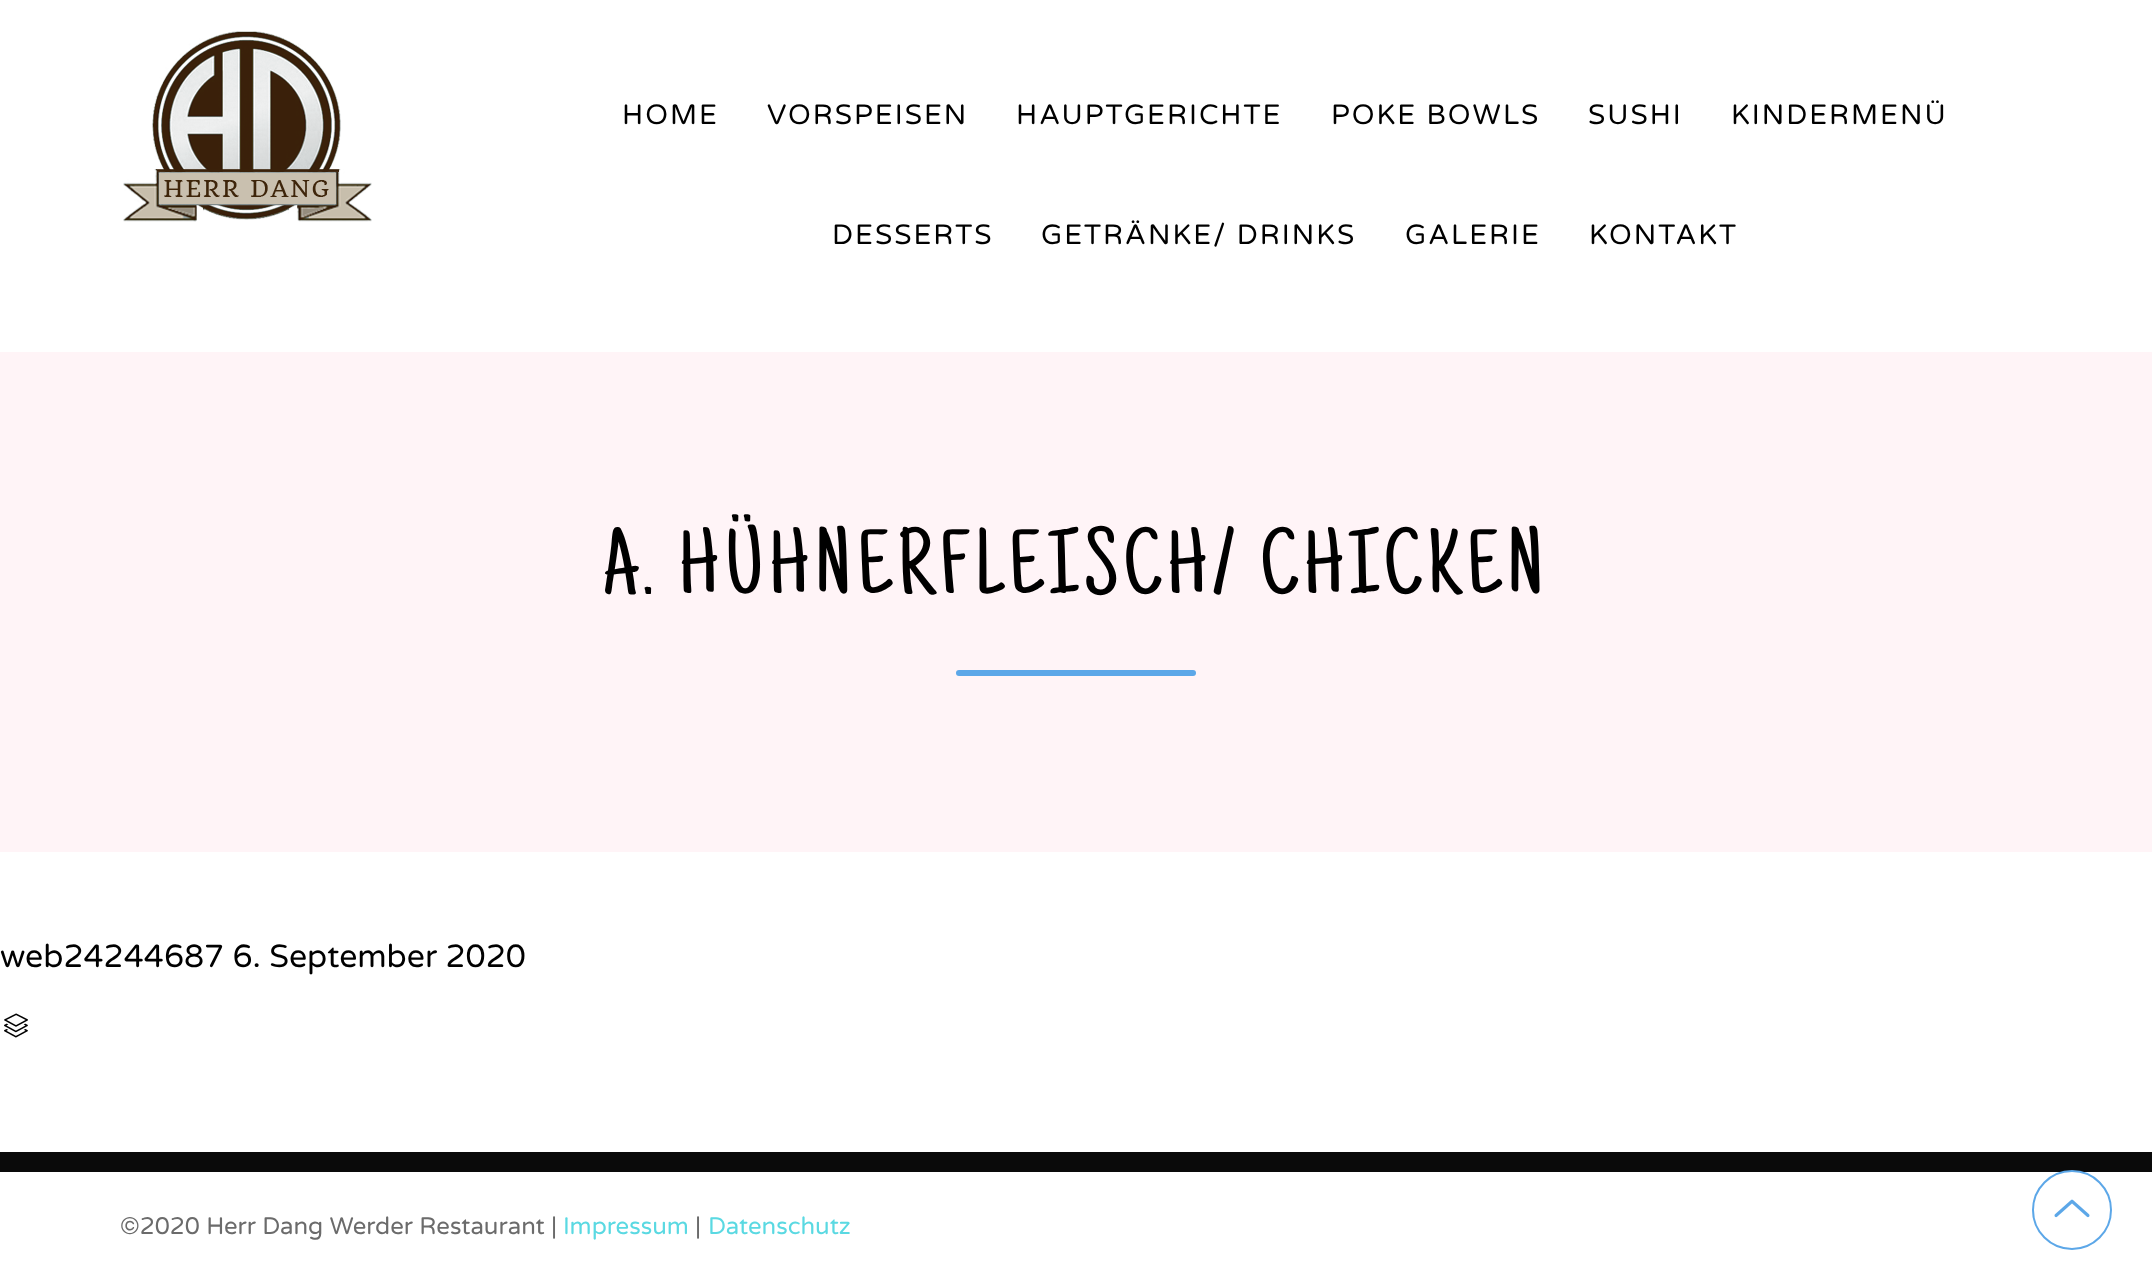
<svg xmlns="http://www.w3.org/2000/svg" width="2152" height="1280">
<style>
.a{font:28px Varela Round;letter-spacing:2px;fill:#000}
.b{font:94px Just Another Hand;letter-spacing:6px;fill:#000}
.c{font:32px Varela Round;fill:#000}
.d{font:24px Varela Round;fill:#6b6b6b}
.e{font:24px Varela Round;fill:#5ad9e2}
</style>
<rect width="100%" height="100%" fill="#fff"/>
<image href="1.png" x="123" y="31" width="249" height="191"/>
<path fill="#fff4f7" d="M0 352h2152v500H0z"/>
<rect fill="#5ca7e8" x="956" y="670" width="240" height="6" rx="3"/>
<image href="2.png" x="4" y="1013" width="24" height="25"/>
<path fill="#0a0a0a" d="M0 1152h2152v20H0z"/>
<circle fill="none" stroke="#5ca7e8" stroke-width="2" cx="2072" cy="1210" r="39"/>
<image href="3.png" x="2054" y="1199" width="36" height="19"/>
<text class="a" x="622" y="124">HOME</text>
<text class="a" x="767" y="124">VORSPEISEN</text>
<text class="a" x="1016" y="124">HAUPTGERICHTE</text>
<text class="a" x="1331" y="124">POKE BOWLS</text>
<text class="a" x="1588" y="124">SUSHI</text>
<text class="a" x="1731" y="124">KINDERMENÜ</text>
<text class="a" x="832" y="244">DESSERTS</text>
<text class="a" x="1041" y="244">GETRÄNKE/ DRINKS</text>
<text class="a" x="1405" y="244">GALERIE</text>
<text class="a" x="1589" y="244">KONTAKT</text>
<text class="b" x="603" y="593">A. HÜHNERFLEISCH/ CHICKEN</text>
<text class="c" x="0" y="967">web24244687 6. September 2020</text>
<text class="d" x="120" y="1234">©2020 Herr Dang Werder Restaurant |</text>
<text class="e" x="563" y="1234">Impressum</text>
<text class="d" x="695" y="1234">|</text>
<text class="e" x="708" y="1234">Datenschutz</text>
</svg>
